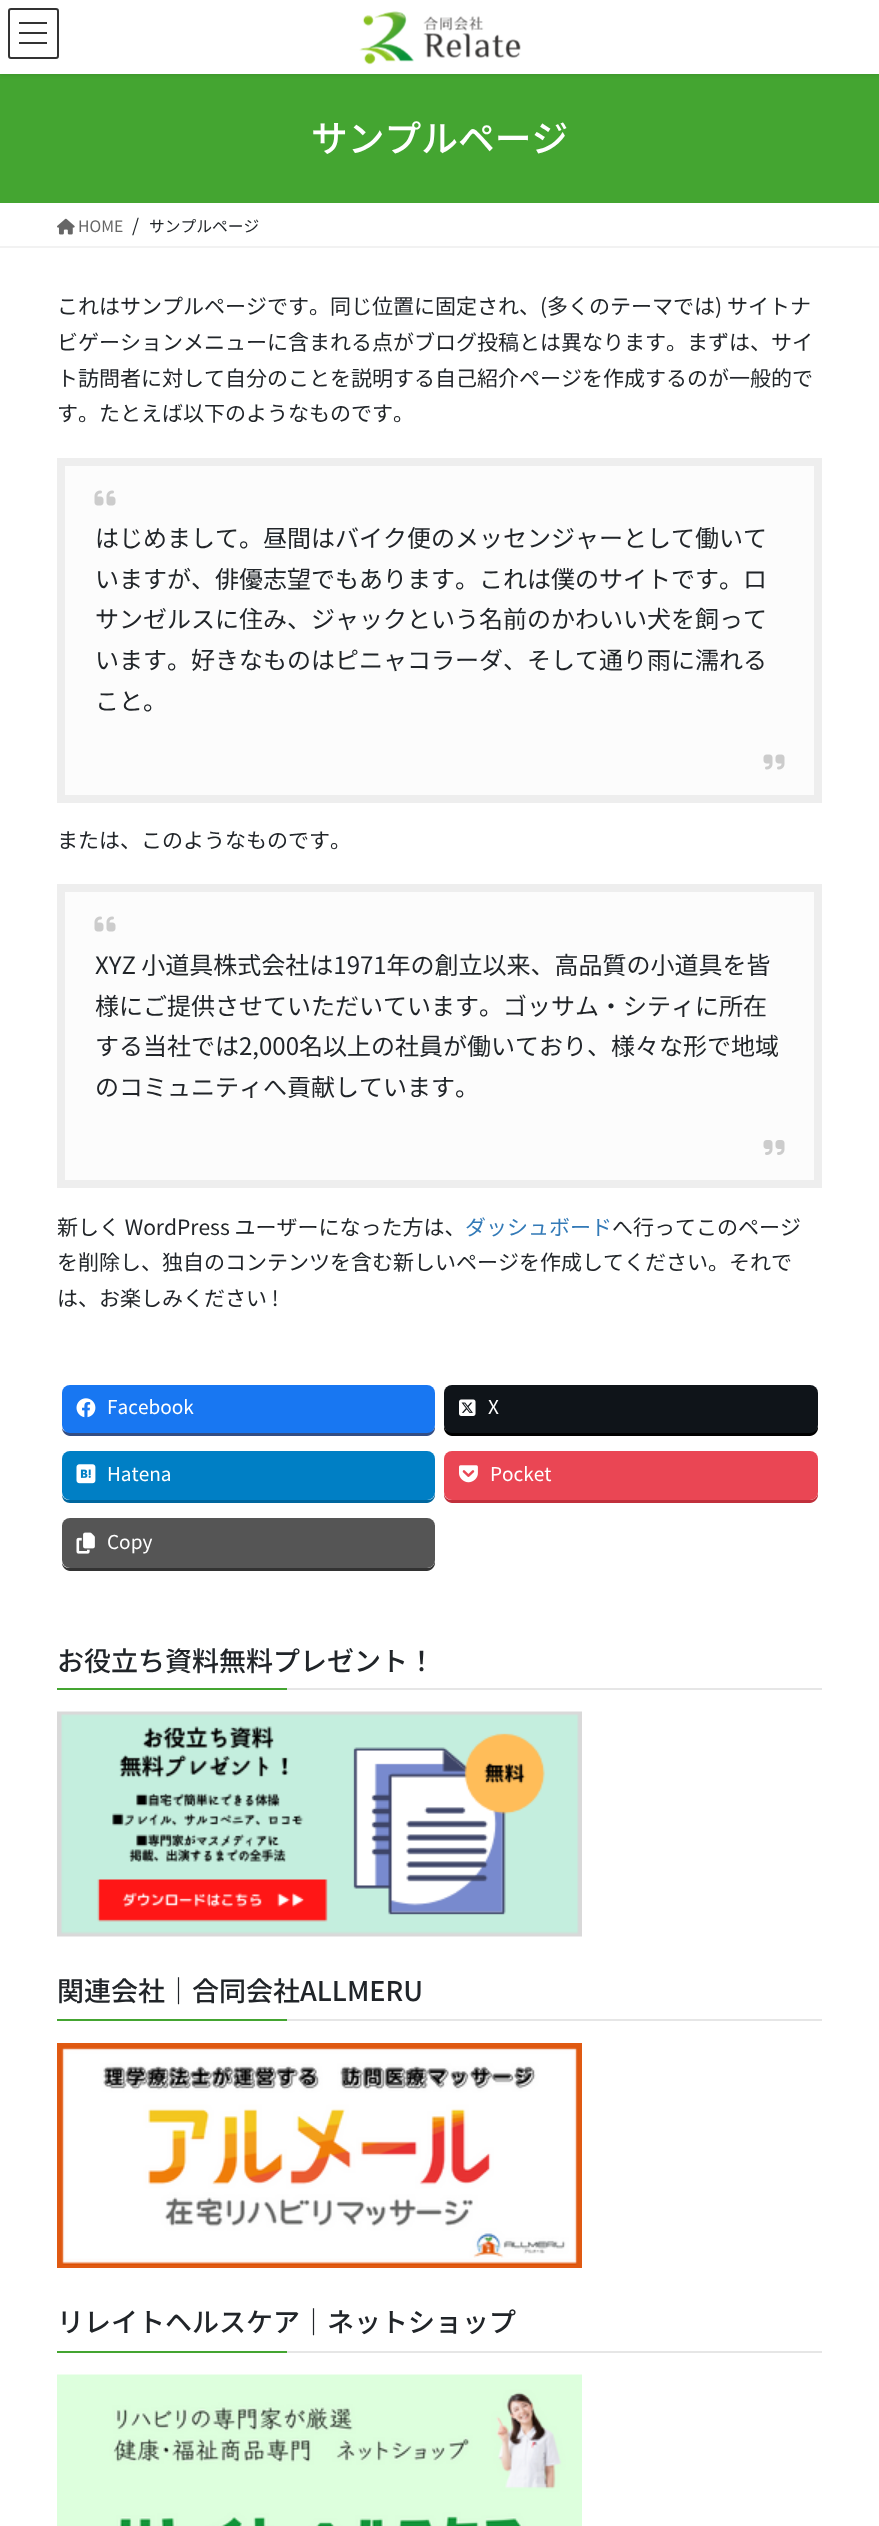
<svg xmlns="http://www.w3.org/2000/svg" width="879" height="2526">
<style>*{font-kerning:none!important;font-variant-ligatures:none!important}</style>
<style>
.a{font:500 36.75px Noto Sans JP;fill:#fff}
.b{font:15.75px Noto Sans JP;fill:#666}
.c{font:18px Noto Sans JP;fill:#212529}
.d{font:15.75px Noto Sans JP;fill:#212529}
.e{font:21px Noto Sans JP;fill:#212529}
.f{font:24px Noto Sans JP;fill:#212529}
.g{font:21px Noto Sans JP;fill:#337ab7}
.h{font:19px Noto Sans JP;fill:#fff}
.i{font:500 27px Noto Sans JP;fill:#212529}
</style>
<rect width="100%" height="100%" fill="#fff"/>
<path fill="#44a531" d="M0 74h879v129H0z"/>
<path fill="#0000001a" filter="blur(2px)" d="M0 2h879v73H0z"/>
<path fill="#fff" d="M0 0h879v74H0z"/>
<image href="1.png" x="359" y="11" width="162" height="54"/>
<path fill="#333" d="M19 22h28v2H19z"/>
<path fill="#333" d="M19 32h28v2H19z"/>
<path fill="#333" d="M19 42h28v2H19z"/>
<rect fill="none" stroke="#333" stroke-width="2" x="9" y="9" width="49" height="49" rx="2"/>
<path fill="#f2f2f2" d="M0 246h879v2H0z"/>
<image href="2.png" x="57" y="218" width="18" height="17"/>
<path fill="#fcfcfc" stroke="#eee" stroke-width="8" d="M61 462h757v337H61z"/>
<image href="3.png" x="94" y="490" width="22" height="16"/>
<image href="4.png" x="763" y="754" width="22" height="16"/>
<path fill="#fcfcfc" stroke="#eee" stroke-width="8" d="M61 888h757v296H61z"/>
<image href="3.png" x="94" y="916" width="22" height="16"/>
<image href="5.png" x="763" y="1140" width="22" height="15"/>
<path fill="#344e84" d="M62 1428c0 4 4 8 8 8h357c4 0 8-4 8-8v-3c0 4-3 7-7 7h-359c-3 0-6-1-7-4z"/>
<rect fill="#1877f2" x="62" y="1385" width="373" height="48" rx="8"/>
<image href="6.png" x="76" y="1398" width="20" height="20"/>
<path fill="#000" d="M444 1425v3c0 4 4 8 8 8h358c4 0 8-4 8-8v-32v-3v32c0 4-4 7-8 7h-358c-5 0-8-3-8-7z"/>
<rect fill="#0f1419" x="444" y="1385" width="374" height="48" rx="8"/>
<image href="7.png" x="459" y="1399" width="17" height="17"/>
<path fill="#00679f" d="M62 1495c0 5 4 8 8 8h357c4 0 8-4 8-8v-3c0 5-3 8-7 8h-359c-3 0-6-2-7-5z"/>
<rect fill="#007fc5" x="62" y="1451" width="373" height="49" rx="8"/>
<image href="8.png" x="76" y="1464" width="20" height="20"/>
<path fill="#c1303c" d="M444 1492v3c0 4 4 8 8 8h358c4 0 8-4 8-8v-33v-3v33c0 5-4 8-8 8h-358c-5 0-8-3-8-8z"/>
<rect fill="#ea4654" x="444" y="1451" width="374" height="49" rx="8"/>
<image href="9.png" x="459" y="1465" width="19" height="18"/>
<path fill="#333" d="M62 1563c0 4 4 8 8 8h357c4 0 8-4 8-8v-3c0 4-3 8-7 8h-359c-3 0-6-2-7-5z"/>
<rect fill="#555" x="62" y="1518" width="373" height="50" rx="8"/>
<image href="10.png" x="76" y="1532" width="19" height="22"/>
<path fill="#e6e6e6" d="M287 1688h535v2H287z"/>
<path fill="#44a531" d="M57 1688h230v2H57z"/>
<image href="11.png" x="57" y="1711" width="525" height="226"/>
<path fill="#e6e6e6" d="M287 2019h535v2H287z"/>
<path fill="#44a531" d="M57 2019h230v2H57z"/>
<image href="12.png" x="57" y="2043" width="525" height="225"/>
<path fill="#e6e6e6" d="M287 2351h535v2H287z"/>
<path fill="#44a531" d="M57 2351h230v2H57z"/>
<image href="13.png" x="57" y="2374" width="525" height="152"/>
<text class="a" x="311" y="152">サンプルページ</text>
<text class="b" x="78" y="232">HOME</text>
<text class="c" x="132" y="232">/</text>
<text class="d" x="149" y="232">サンプルページ</text>
<text class="e" x="57" y="314">これはサンプルページです。同じ位置に固定され、(多くのテーマでは) サイトナ</text>
<text class="e" x="57" y="350">ビゲーションメニューに含まれる点がブログ投稿とは異なります。まずは、サイ</text>
<text class="e" x="57" y="386">ト訪問者に対して自分のことを説明する自己紹介ページを作成するのが一般的で</text>
<text class="e" x="57" y="421">す。たとえば以下のようなものです</text>
<text class="e" x="393" y="421">。</text>
<text class="f" x="95" y="547">はじめまして。昼間はバイク便のメッセンジャーとして働いて</text>
<text class="f" x="95" y="588">いますが、俳優志望でもあります。これは僕のサイトです</text>
<text class="f" x="719" y="588">。ロ</text>
<text class="f" x="95" y="628">サンゼルスに住み、ジャックという名前のかわいい犬を飼って</text>
<text class="f" x="95" y="669">います。好きなものはピニャコラーダ、そして通り雨に濡れる</text>
<text class="f" x="95" y="710">こと。</text>
<text class="e" x="57" y="848">または、このようなものです。</text>
<text class="f" x="95" y="974">XYZ 小道具株式会社は1971年の創立以来、高品質の小道具を皆</text>
<text class="f" x="95" y="1015">様にご提供させていただいています。ゴッサム・シテ</text>
<text class="f" x="671" y="1015">ィに所在</text>
<text class="f" x="95" y="1055">する当社では2,000名以上の社員が働いており、様々な形で地域</text>
<text class="f" x="95" y="1096">のコミュニティへ貢献しています。</text>
<text class="e" x="57" y="1235">新しく WordPress ユーザーになった方は、</text>
<text class="g" x="465" y="1235">ダッシュボード</text>
<text class="e" x="612" y="1235">へ行ってこのページ</text>
<text class="e" x="57" y="1270">を削除し、独自のコンテンツを含む新しいページを作成してください。それで</text>
<text class="e" x="57" y="1306">は、お楽しみください !</text>
<text class="h" x="107" y="1414">Facebook</text>
<text class="h" x="488" y="1414">X</text>
<text class="h" x="107" y="1481">Hatena</text>
<text class="h" x="490" y="1481">Pocket</text>
<text class="h" x="107" y="1549">Copy</text>
<text class="i" x="57" y="1671">お役立ち資料無料プレゼント！</text>
<text class="i" x="57" y="2001">関連会社｜合同会社ALLMERU</text>
<text class="i" x="57" y="2332">リレイトヘルスケア｜ネットショップ</text>
</svg>
